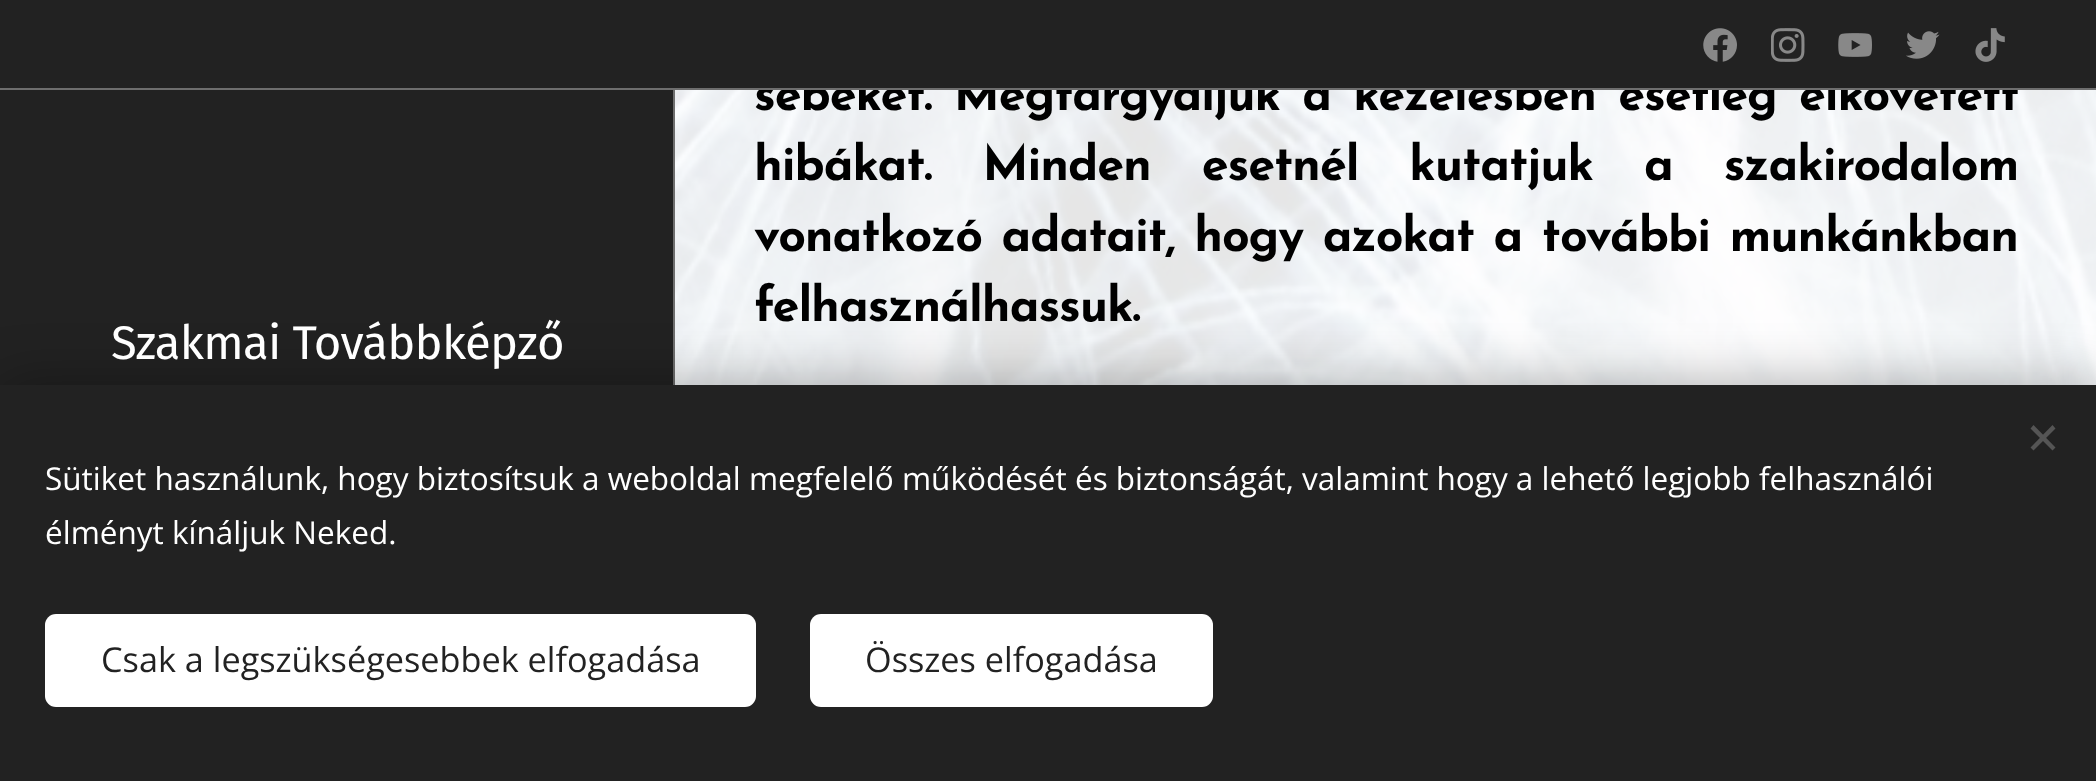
<svg xmlns="http://www.w3.org/2000/svg" width="2096" height="781">
<style>
.a{font:bold 48.6px Josefin Sans;letter-spacing:-1.08px;fill:#000}
.b{font:47.25px Fira Sans;letter-spacing:-0.7px;fill:#fff}
.c{font:31.5px Open Sans;fill:#fff}
.d{font:34.25px Open Sans;fill:#222}
</style>
<rect width="100%" height="100%" fill="#fff"/>
<image href="1.png" x="675" y="90" width="1421" height="295"/>
<path fill="#ffffffe6" d="M675 90h1421v295H675z"/>
<path fill="#222" d="M0 90h673v295H0z"/>
<path fill="#6e6e6e" d="M673 90h2v295H673z"/>
<path fill="#00000054" filter="blur(28px)" d="M0 385h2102v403H0z"/>
<path fill="#222" d="M0 385h2096v396H0z"/>
<path fill="#555" d="M2030.5 447.5l22-22.5l3 3.5l-22 22z"/>
<path fill="#555" d="M2033.5 425l22 22.5l-3 3l-22-22z"/>
<rect fill="#fff" x="45" y="614" width="711" height="93" rx="11"/>
<rect fill="#fff" x="810" y="614" width="403" height="93" rx="11"/>
<text class="a" x="754" y="110" word-spacing="7.5">sebeket. Megtárgyaljuk a kezelésben esetleg elkövetett</text>
<text class="a" x="754" y="180" word-spacing="36.25">hibákat. Minden esetnél kutatjuk a szakirodalom</text>
<text class="a" x="754" y="251" word-spacing="4.75">vonatkozó adatait, hogy azokat a további munkánkban</text>
<text class="a" x="754" y="321">felhasználhassuk.</text>
<path fill="#222" d="M0 0h2096v88H0z"/>
<image href="2.png" x="1703" y="28" width="34" height="34"/>
<image href="3.png" x="1771" y="28" width="34" height="34"/>
<image href="4.png" x="1838" y="33" width="34" height="24"/>
<image href="5.png" x="1906" y="31" width="34" height="28"/>
<image href="6.png" x="1975" y="28" width="30" height="34"/>
<path fill="#6e6e6e" d="M0 88h2096v2H0z"/>
<text class="b" x="111" y="359">Szakmai Továbbképző</text>
<text class="c" x="45" y="490">Sütiket használunk, hogy biztosítsuk a weboldal megfelelő működését és biztonságát, valamint hogy a lehető legjobb felhasználói</text>
<text class="c" x="45" y="544">élményt kínáljuk Neked.</text>
<text class="d" x="101" y="672">Csak a legszükségesebbek elfogadása</text>
<text class="d" x="865" y="672">Összes elfogadása</text>
</svg>
